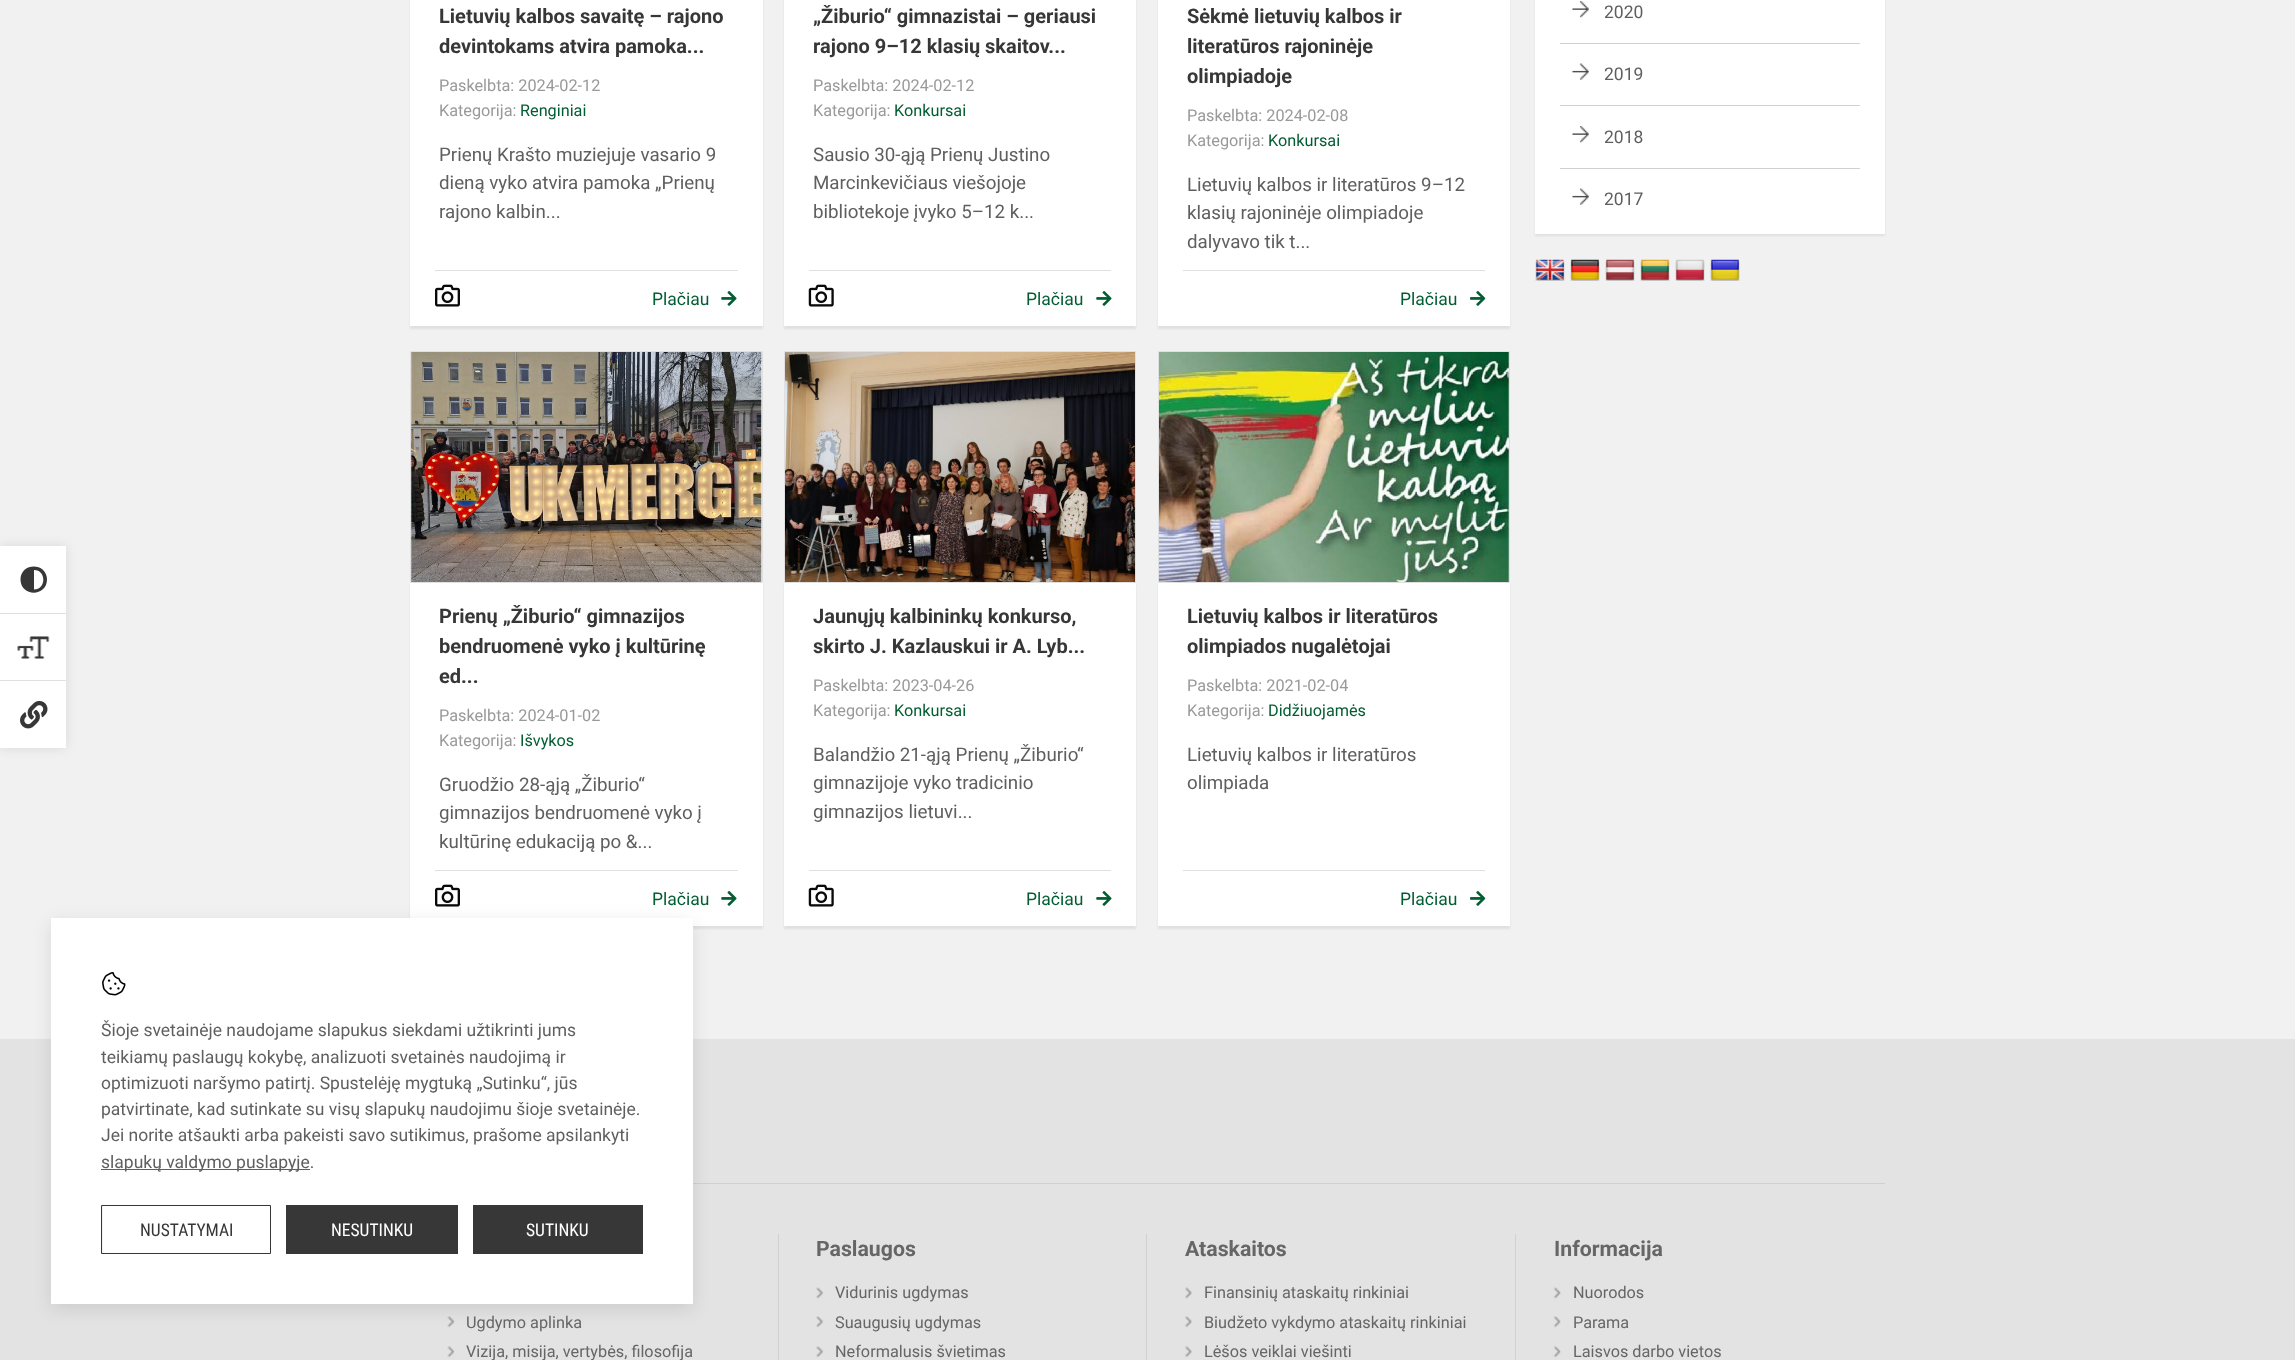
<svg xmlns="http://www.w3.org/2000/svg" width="2295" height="1360">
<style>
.a{font:bold 20px Roboto;fill:#373737}
.b{font:16.25px Roboto;fill:#999}
.c{font:16.25px Roboto;fill:#035d32}
.d{font:18.75px Roboto;fill:#5f5f5f}
.e{font:17.5px Roboto;fill:#035d32}
.f{font:17.5px Roboto;fill:#5f5f5f}
.g{font:17.5px Roboto Condensed;fill:#373737}
.h{font:17.5px Roboto Condensed;fill:#fff}
.i{font:16.25px Roboto;fill:#666}
.j{font:bold 21.25px Roboto;fill:#666}
</style>
<rect width="100%" height="100%" fill="#f1f1f1"/>
<path fill="#0000001a" filter="blur(6px)" d="M0 546h66v202H0z"/>
<path fill="#e0e0e0" d="M0 613h66v1H0z"/>
<path fill="#fff" d="M0 546h66v67H0z"/>
<path fill="#373737" d="M20.5 579.5c0 17.5 26.5 17.5 26.5 0c0-17.5-26.5-17.5-26.5 0zm13.5 10v-19.5c12.5 0 12.5 19.5 0 19.5z"/>
<path fill="#e0e0e0" d="M0 680h66v1H0z"/>
<path fill="#fff" d="M0 614h66v66H0z"/>
<image href="1.png" x="17" y="636" width="33" height="23"/>
<path fill="#fff" d="M0 681h66v67H0z"/>
<image href="2.png" x="20" y="700" width="28" height="29"/>
<path fill="#e0e0e0" filter="blur(1px)" d="M410 -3h353v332H410z"/>
<path fill="#fff" d="M410 0h353v326H410z"/>
<path fill="#e0e0e0" d="M435 270h303v1H435z"/>
<image href="3.png" x="435" y="284" width="25" height="23"/>
<image href="4.png" x="721" y="291" width="16" height="15"/>
<path fill="#e0e0e0" filter="blur(1px)" d="M784 -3h352v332H784z"/>
<path fill="#fff" d="M784 0h352v326H784z"/>
<path fill="#e0e0e0" d="M809 270h302v1H809z"/>
<image href="5.png" x="808" y="284" width="26" height="23"/>
<image href="4.png" x="1096" y="291" width="16" height="15"/>
<path fill="#e0e0e0" filter="blur(1px)" d="M1158 -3h352v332H1158z"/>
<path fill="#fff" d="M1158 0h352v326H1158z"/>
<path fill="#e0e0e0" d="M1183 270h302v1H1183z"/>
<image href="6.png" x="1470" y="291" width="16" height="15"/>
<image href="7.png" x="411" y="352" width="351" height="230"/>
<path fill="none" stroke="#e0e0e0" d="M410.5 351.5h352v231H410.5z"/>
<path fill="#e0e0e0" filter="blur(1px)" d="M410 585h353v344H410z"/>
<path fill="#fff" d="M410 583h353v343H410z"/>
<path fill="#e0e0e0" d="M435 870h303v1H435z"/>
<image href="3.png" x="435" y="884" width="25" height="23"/>
<image href="4.png" x="721" y="891" width="16" height="15"/>
<image href="8.png" x="785" y="352" width="350" height="230"/>
<path fill="none" stroke="#e0e0e0" d="M784.5 351.5h351v231H784.5z"/>
<path fill="#e0e0e0" filter="blur(1px)" d="M784 585h352v344H784z"/>
<path fill="#fff" d="M784 583h352v343H784z"/>
<path fill="#e0e0e0" d="M809 870h302v1H809z"/>
<image href="5.png" x="808" y="884" width="26" height="23"/>
<image href="4.png" x="1096" y="891" width="16" height="15"/>
<image href="9.png" x="1159" y="352" width="350" height="230"/>
<path fill="none" stroke="#e0e0e0" d="M1158.5 351.5h351v231H1158.5z"/>
<path fill="#e0e0e0" filter="blur(1px)" d="M1158 585h352v344H1158z"/>
<path fill="#fff" d="M1158 583h352v343H1158z"/>
<path fill="#e0e0e0" d="M1183 870h302v1H1183z"/>
<image href="6.png" x="1470" y="891" width="16" height="15"/>
<path fill="#e0e0e0" filter="blur(1px)" d="M1535 -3h350v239H1535z"/>
<path fill="#fff" d="M1535 0h350v234H1535z"/>
<path fill="#d1d1d1" d="M1560 43h300v1H1560z"/>
<image href="10.png" x="1572" y="1" width="17" height="17"/>
<path fill="#d1d1d1" d="M1560 105h300v1H1560z"/>
<image href="11.png" x="1572" y="63" width="17" height="17"/>
<path fill="#d1d1d1" d="M1560 168h300v1H1560z"/>
<image href="10.png" x="1572" y="126" width="17" height="17"/>
<image href="11.png" x="1572" y="188" width="17" height="17"/>
<image href="12.png" x="1535" y="259" width="30" height="22"/>
<image href="13.png" x="1570" y="259" width="30" height="22"/>
<image href="14.png" x="1605" y="259" width="30" height="22"/>
<image href="15.png" x="1640" y="259" width="30" height="22"/>
<image href="16.png" x="1675" y="259" width="30" height="22"/>
<image href="17.png" x="1710" y="259" width="30" height="22"/>
<path fill="#e4e3e3" d="M0 1039h2295v321H0z"/>
<path fill="#d0d0d0" d="M693 1183h1192v1H693z"/>
<image href="19.png" x="447" y="1316" width="8" height="12"/>
<path fill="#0000001a" filter="blur(9px)" d="M51 923h642v386H51z"/>
<path fill="#fff" d="M51 918h642v386H51z"/>
<image href="18.png" x="102" y="972" width="24" height="24"/>
<path fill="#5f5f5f" d="M101 1169h209v1H101z"/>
<path fill="#f2f2f2" d="M102 1205h1v49H102z"/>
<path fill="none" stroke="#373737" d="M101.5 1205.5h169v48H101.5z"/>
<path fill="#373737" d="M286 1205h172v49H286z"/>
<path fill="#373737" d="M473 1205h170v49H473z"/>
<path fill="#d0d0d0" d="M778 1234h1v126H778z"/>
<image href="19.png" x="447" y="1346" width="8" height="12"/>
<path fill="#d0d0d0" d="M1146 1234h1v126H1146z"/>
<image href="20.png" x="816" y="1287" width="8" height="12"/>
<image href="21.png" x="816" y="1316" width="8" height="12"/>
<image href="21.png" x="816" y="1346" width="8" height="12"/>
<path fill="#d0d0d0" d="M1515 1234h1v126H1515z"/>
<image href="22.png" x="1185" y="1287" width="7" height="12"/>
<image href="23.png" x="1185" y="1316" width="8" height="12"/>
<image href="23.png" x="1185" y="1346" width="8" height="12"/>
<image href="24.png" x="1553" y="1287" width="8" height="12"/>
<image href="25.png" x="1553" y="1316" width="8" height="12"/>
<image href="25.png" x="1553" y="1346" width="8" height="12"/>
<text class="a" x="439" y="23">Lietuvių kalbos savaitę – rajono</text>
<text class="a" x="439" y="53">devintokams atvira pamoka...</text>
<text class="b" x="439" y="91">Paskelbta: 2024-02-12</text>
<text class="b" x="439" y="116">Kategorija:</text>
<text class="c" x="520" y="116">Renginiai</text>
<text class="d" x="439" y="161">Prienų Krašto muziejuje vasario 9</text>
<text class="d" x="439" y="189">dieną vyko atvira pamoka „Prienų</text>
<text class="d" x="439" y="218">rajono kalbin...</text>
<text class="e" x="652" y="305">Plačiau</text>
<text class="a" x="813" y="23">„Žiburio“ gimnazistai – geriausi</text>
<text class="a" x="813" y="53">rajono 9–12 klasių skaitov...</text>
<text class="b" x="813" y="91">Paskelbta: 2024-02-12</text>
<text class="b" x="813" y="116">Kategorija:</text>
<text class="c" x="894" y="116">Konkursai</text>
<text class="d" x="813" y="161">Sausio 30-ąją Prienų Justino</text>
<text class="d" x="813" y="189">Marcinkevičiaus viešojoje</text>
<text class="d" x="813" y="218">bibliotekoje įvyko 5–12 k...</text>
<text class="e" x="1026" y="305">Plačiau</text>
<text class="a" x="1187" y="23">Sėkmė lietuvių kalbos ir</text>
<text class="a" x="1187" y="53">literatūros rajoninėje</text>
<text class="a" x="1187" y="83">olimpiadoje</text>
<text class="b" x="1187" y="121">Paskelbta: 2024-02-08</text>
<text class="b" x="1187" y="146">Kategorija:</text>
<text class="c" x="1268" y="146">Konkursai</text>
<text class="d" x="1187" y="191">Lietuvių kalbos ir literatūros 9–12</text>
<text class="d" x="1187" y="219">klasių rajoninėje olimpiadoje</text>
<text class="d" x="1187" y="248">dalyvavo tik t...</text>
<text class="e" x="1400" y="305">Plačiau</text>
<text class="a" x="439" y="623">Prienų „Žiburio“ gimnazijos</text>
<text class="a" x="439" y="653">bendruomenė vyko į kultūrinę</text>
<text class="a" x="439" y="683">ed...</text>
<text class="b" x="439" y="721">Paskelbta: 2024-01-02</text>
<text class="b" x="439" y="746">Kategorija:</text>
<text class="c" x="520" y="746">Išvykos</text>
<text class="d" x="439" y="791">Gruodžio 28-ąją „Žiburio“</text>
<text class="d" x="439" y="819">gimnazijos bendruomenė vyko į</text>
<text class="d" x="439" y="848">kultūrinę edukaciją po &amp;...</text>
<text class="e" x="652" y="905">Plačiau</text>
<text class="a" x="813" y="623">Jaunųjų kalbininkų konkurso,</text>
<text class="a" x="813" y="653">skirto J. Kazlauskui ir A. Lyb...</text>
<text class="b" x="813" y="691">Paskelbta: 2023-04-26</text>
<text class="b" x="813" y="716">Kategorija:</text>
<text class="c" x="894" y="716">Konkursai</text>
<text class="d" x="813" y="761">Balandžio 21-ąją Prienų „Žiburio“</text>
<text class="d" x="813" y="789">gimnazijoje vyko tradicinio</text>
<text class="d" x="813" y="818">gimnazijos lietuvi...</text>
<text class="e" x="1026" y="905">Plačiau</text>
<text class="a" x="1187" y="623">Lietuvių kalbos ir literatūros</text>
<text class="a" x="1187" y="653">olimpiados nugalėtojai</text>
<text class="b" x="1187" y="691">Paskelbta: 2021-02-04</text>
<text class="b" x="1187" y="716">Kategorija:</text>
<text class="c" x="1268" y="716">Didžiuojamės</text>
<text class="d" x="1187" y="761">Lietuvių kalbos ir literatūros</text>
<text class="d" x="1187" y="789">olimpiada</text>
<text class="e" x="1400" y="905">Plačiau</text>
<text class="f" x="1604" y="18">2020</text>
<text class="f" x="1604" y="80">2019</text>
<text class="f" x="1604" y="143">2018</text>
<text class="f" x="1604" y="205">2017</text>
<text class="f" x="101" y="1036">Šioje svetainėje naudojame slapukus siekdami užtikrinti jums</text>
<text class="f" x="101" y="1063">teikiamų paslaugų kokybę, analizuoti svetainės naudojimą ir</text>
<text class="f" x="101" y="1089">optimizuoti naršymo patirtį. Spustelėję mygtuką „Sutinku“, jūs</text>
<text class="f" x="101" y="1115">patvirtinate, kad sutinkate su visų slapukų naudojimu šioje svetainėje.</text>
<text class="f" x="101" y="1141">Jei norite atšaukti arba pakeisti savo sutikimus, prašome apsilankyti</text>
<text class="f" x="101" y="1168">slapukų valdymo puslapyje.</text>
<text class="g" x="140" y="1236">NUSTATYMAI</text>
<text class="h" x="331" y="1236">NESUTINKU</text>
<text class="h" x="526" y="1236">SUTINKU</text>
<text class="i" x="466" y="1328">Ugdymo aplinka</text>
<text class="i" x="466" y="1357">Vizija, misija, vertybės, filosofija</text>
<text class="j" x="816" y="1256">Paslaugos</text>
<text class="i" x="835" y="1298">Vidurinis ugdymas</text>
<text class="i" x="835" y="1328">Suaugusių ugdymas</text>
<text class="i" x="835" y="1357">Neformalusis švietimas</text>
<text class="j" x="1185" y="1256">Ataskaitos</text>
<text class="i" x="1204" y="1298">Finansinių ataskaitų rinkiniai</text>
<text class="i" x="1204" y="1328">Biudžeto vykdymo ataskaitų rinkiniai</text>
<text class="i" x="1204" y="1357">Lėšos veiklai viešinti</text>
<text class="j" x="1554" y="1256">Informacija</text>
<text class="i" x="1573" y="1298">Nuorodos</text>
<text class="i" x="1573" y="1328">Parama</text>
<text class="i" x="1573" y="1357">Laisvos darbo vietos</text>
</svg>
